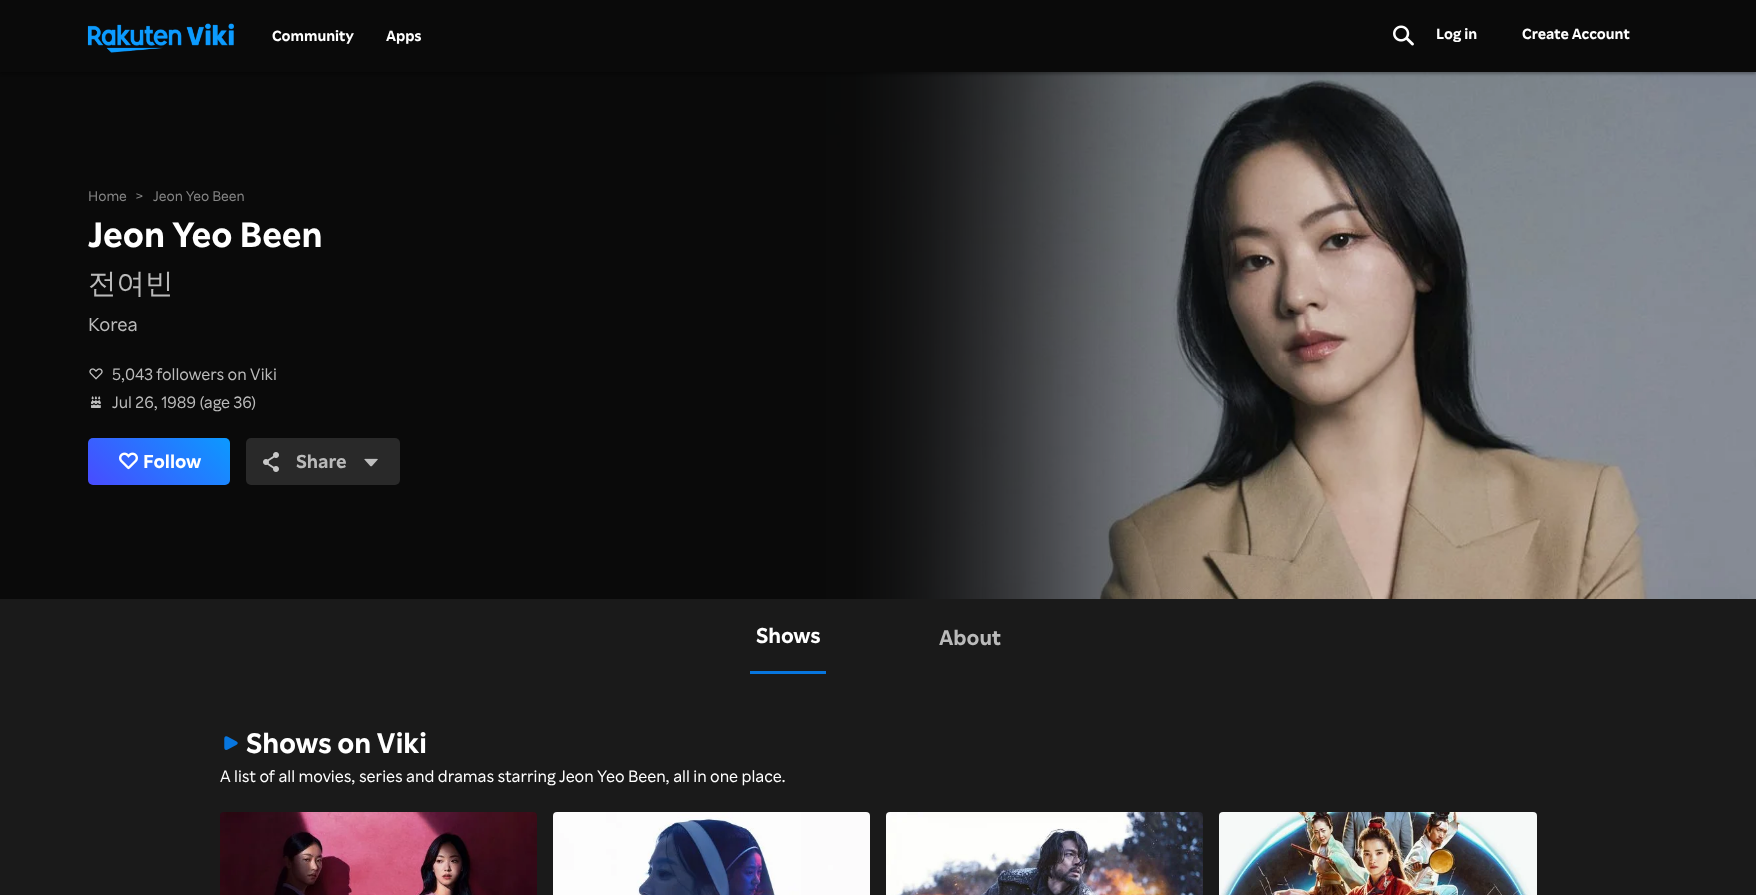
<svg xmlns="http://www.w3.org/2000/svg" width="1756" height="895">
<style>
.a{font:bold 15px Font;fill:#fff}
.b{font:14.25px Font;fill:#858585}
.c{font:bold 35.5px Font;fill:#fff}
.d{font:500 28.5px WenQuanYi Zen Hei;fill:#bababa}
.e{font:19px Font;fill:#bababa}
.f{font:16.6px Font;fill:#bababa}
.g{font:bold 19px Font;fill:#fff}
.h{font:bold 19px Font;fill:#bababa}
.i{font:bold 21.5px Font;fill:#fff}
.j{font:bold 21.5px Font;fill:#bababa}
.k{font:bold 28.5px Font;fill:#fff}
.l{font:16.6px Font;fill:#fff}
</style>
<defs>
<linearGradient id="g1" gradientUnits="userSpaceOnUse" x1="112" y1="509" x2="206" y2="414"><stop offset="0" stop-color="#494bff"/><stop offset="1" stop-color="#0b9aff"/></linearGradient>
</defs>
<rect width="100%" height="100%" fill="#1a1a1a"/>
<path fill="#0a0a0a" d="M0 72h819v527H0z"/>
<image href="8.png" x="819" y="72" width="937" height="527"/>
<path fill="#0000004d" filter="blur(1.5px)" d="M0 2h1756v72H0z"/>
<path fill="#0a0a0a" d="M0 0h1756v72H0z"/>
<image href="1.png" x="87" y="23" width="147" height="30"/>
<image href="2.png" x="1393" y="25" width="21" height="21"/>
<image href="3.png" x="89" y="368" width="14" height="12"/>
<image href="4.png" x="91" y="396" width="10" height="12"/>
<rect fill="url(#g1)" x="88" y="438" width="142" height="47" rx="5"/>
<image href="5.png" x="119" y="452" width="19" height="18"/>
<rect fill="#292929" x="246" y="438" width="154" height="47" rx="5"/>
<image href="6.png" x="263" y="452" width="16" height="20"/>
<image href="7.png" x="364" y="458" width="14" height="9"/>
<path fill="#0776df" d="M750 671h76v3H750z"/>
<image href="9.png" x="224" y="736" width="14" height="14"/>
<image href="10.png" x="220" y="812" width="317" height="83"/>
<image href="11.png" x="553" y="812" width="317" height="83"/>
<image href="12.png" x="886" y="812" width="317" height="83"/>
<image href="13.png" x="1219" y="812" width="318" height="83"/>
<text class="a" x="272" y="41">Community</text>
<text class="a" x="386" y="41">Apps</text>
<text class="a" x="1436" y="39">Log in</text>
<text class="a" x="1522" y="39">Create Account</text>
<text class="b" x="88" y="201">Home</text>
<text class="b" x="135" y="201">&gt;</text>
<text class="b" x="153" y="201">Jeon Yeo Been</text>
<text class="c" x="88" y="247">Jeon Yeo Been</text>
<text class="d" x="88" y="293">전여빈</text>
<text class="e" x="88" y="331">Korea</text>
<text class="f" x="112" y="380">5,043 followers on Viki</text>
<text class="f" x="112" y="408">Jul 26, 1989 (age 36)</text>
<text class="g" x="143" y="468">Follow</text>
<text class="h" x="296" y="468">Share</text>
<text class="i" x="756" y="643">Shows</text>
<text class="j" x="939" y="645">About</text>
<text class="k" x="246" y="753">Shows on Viki</text>
<text class="l" x="220" y="782">A list of all movies, series and dramas starring Jeon Yeo Been, all in one place.</text>
</svg>
